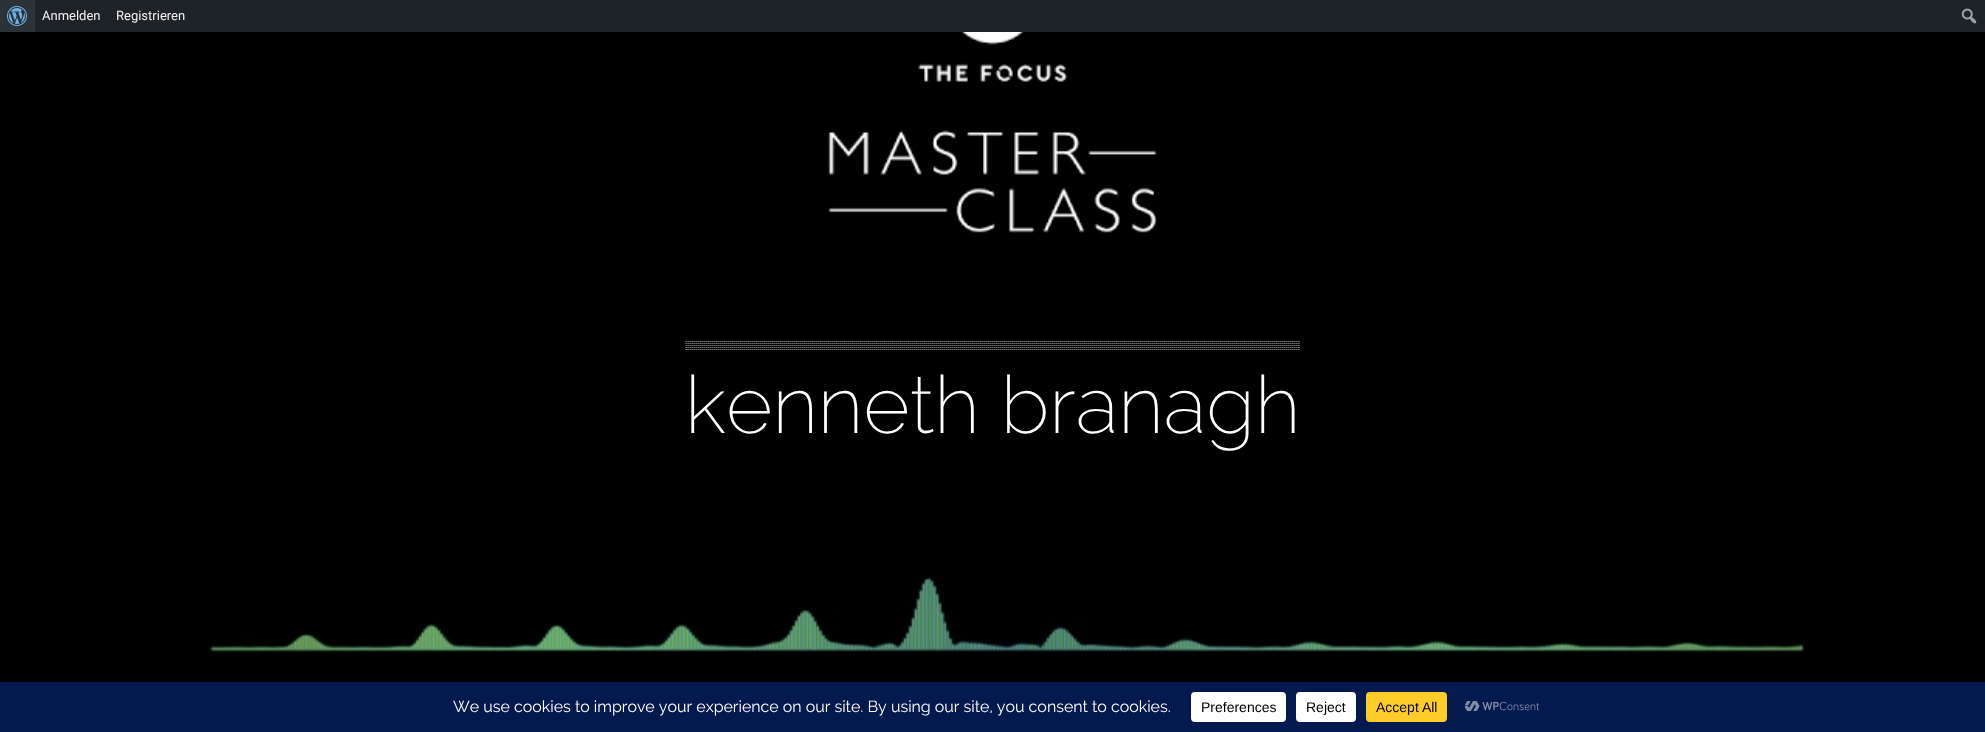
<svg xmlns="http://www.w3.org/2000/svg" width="1985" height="732">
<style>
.a{font:13px Roboto;fill:#f0f0f1}
.b{font:200 80px Raleway;fill:#fff}
.c{font:16px Raleway;fill:#fff}
.d{font:14px Liberation Sans;fill:#000}
</style>
<rect width="100%" height="100%" fill="#fff"/>
<path fill="#1d2327" d="M35 0h1950v32H35z"/>
<path fill="#2c3338" d="M0 0h35v32H0z"/>
<image href="1.png" x="7" y="6" width="20" height="20"/>
<image href="2.png" x="1961" y="8" width="16" height="16"/>
<image href="3.png" x="0" y="32" width="1985" height="650"/>
<image href="4.png" x="685" y="341" width="615" height="9"/>
<path fill="#04194e" d="M0 682h1985v50H0z"/>
<rect fill="#fff" x="1191" y="692" width="95" height="30" rx="4"/>
<rect fill="#fff" x="1296" y="692" width="60" height="30" rx="4"/>
<rect fill="#ffcd2a" x="1366" y="692" width="81" height="30" rx="4"/>
<image href="5.png" x="1464" y="701" width="75" height="11"/>
<text class="a" x="42" y="20">Anmelden</text>
<text class="a" x="116" y="20">Registrieren</text>
<text class="b" x="685" y="433">kenneth branagh</text>
<text class="c" x="453" y="712">We use cookies to improve your experience on our site. By using our site, you consent to cookies.</text>
<text class="d" x="1201" y="712">Preferences</text>
<text class="d" x="1306" y="712">Reject</text>
<text class="d" x="1376" y="712">Accept All</text>
</svg>
